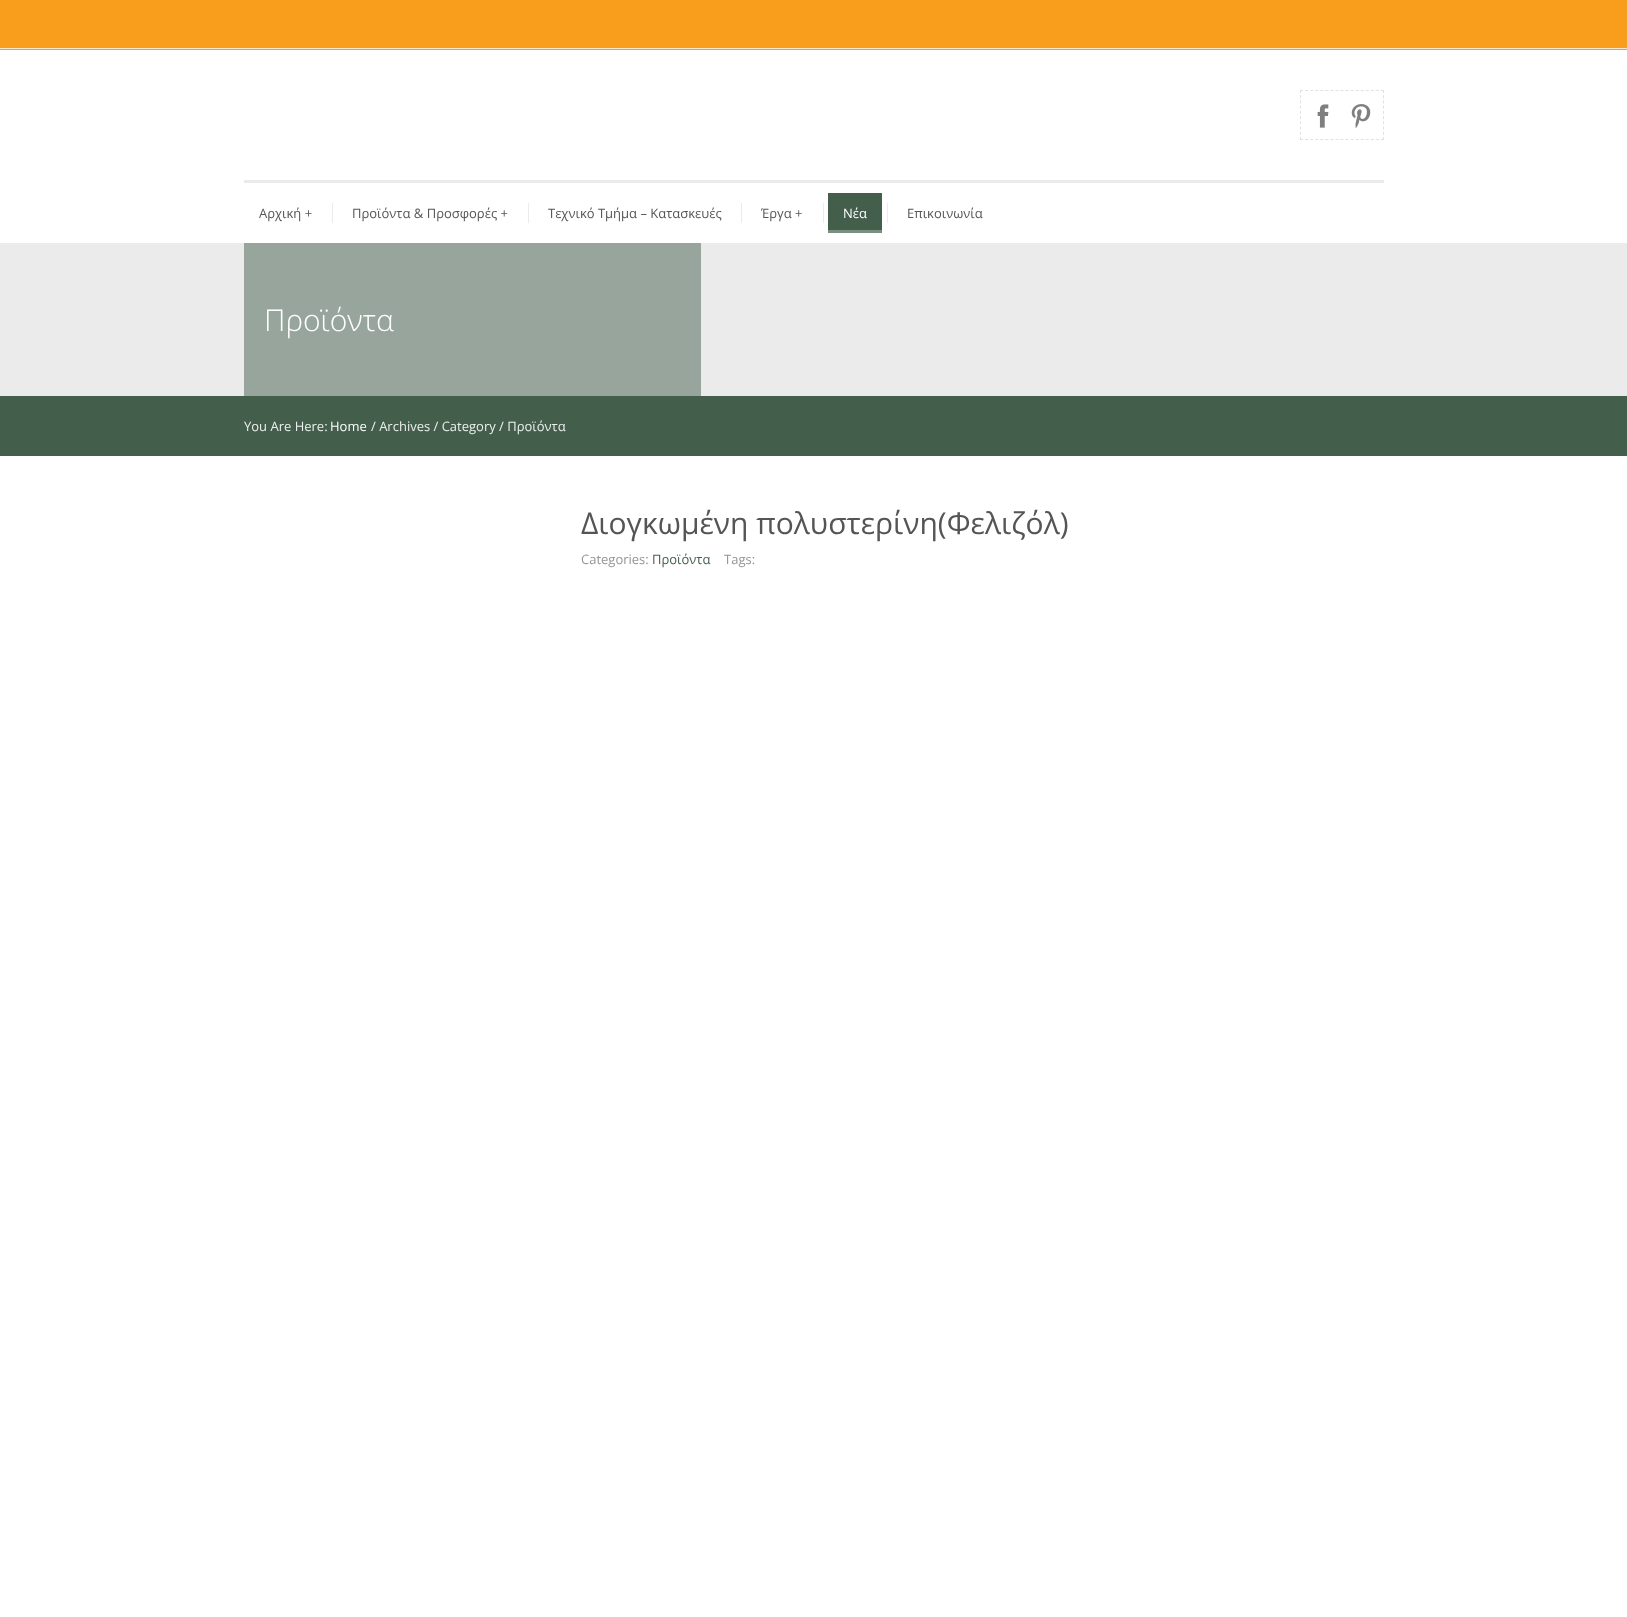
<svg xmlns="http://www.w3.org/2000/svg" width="1627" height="1617">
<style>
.a{font:13px Open Sans;fill:#555}
.b{font:13px Open Sans;fill:#fff}
.c{font:300 30px Open Sans;fill:#fff}
.d{font:13px Open Sans;fill:#ecefed}
.e{font:30px Open Sans;fill:#555}
.f{font:13px Open Sans;fill:#959595}
.g{font:13px Open Sans;fill:#445e4c}
</style>
<rect width="100%" height="100%" fill="#fff"/>
<path fill="#f99d1c" d="M0 0h1627v50H0z"/>
<path fill="#fee7c6" d="M0 48h1627v1H0z"/>
<path fill="#ebebeb" d="M244 180h1140v3H244z"/>
<path fill="none" stroke="#e1e1e1" stroke-dasharray="3 2.06" d="M1300 90.5h84"/>
<path fill="none" stroke="#e1e1e1" stroke-dasharray="3 2.22" d="M1383.5 90v50"/>
<path fill="none" stroke="#e1e1e1" stroke-dasharray="3 2.06" d="M1300 139.5h84"/>
<path fill="none" stroke="#e1e1e1" stroke-dasharray="3 2.22" d="M1300.5 90v50"/>
<image href="1.png" x="1317" y="104" width="12" height="24"/>
<image href="2.png" x="1351" y="104" width="20" height="24"/>
<path fill="#ebebeb" d="M332 203h1v20H332z"/>
<path fill="#ebebeb" d="M528 203h1v20H528z"/>
<path fill="#ebebeb" d="M741 203h1v20H741z"/>
<path fill="#445e4c" d="M828 193h54v37H828z"/>
<path fill="#7c8e82" d="M828 230h54v3H828z"/>
<path fill="#ebebeb" d="M823 203h1v20H823z"/>
<path fill="#ebebeb" d="M887 203h1v20H887z"/>
<path fill="#ebebeb" d="M0 243h1627v153H0z"/>
<path fill="#98a59c" d="M244 243h457v153H244z"/>
<path fill="#445e4c" d="M0 396h1627v60H0z"/>
<text class="a" x="259" y="218">Αρχική +</text>
<text class="a" x="352" y="218">Προϊόντα &amp; Προσφορές +</text>
<text class="a" x="548" y="218">Τεχνικό Τμήμα – Κατασκευές</text>
<text class="a" x="761" y="218">Έργα +</text>
<text class="b" x="843" y="218">Νέα</text>
<text class="a" x="907" y="218">Επικοινωνία</text>
<text class="c" x="264" y="331">Προϊόντα</text>
<text class="d" x="244" y="431">You Are Here:</text>
<text class="b" x="330" y="431">Home</text>
<text class="d" x="371" y="431">/ Archives / Category / Προϊόντα</text>
<text class="e" x="581" y="534">Διογκωμένη πολυστερίνη(Φελιζόλ)</text>
<text class="f" x="581" y="564">Categories:</text>
<text class="g" x="652" y="564">Προϊόντα</text>
<text class="f" x="724" y="564">Tags:</text>
</svg>
